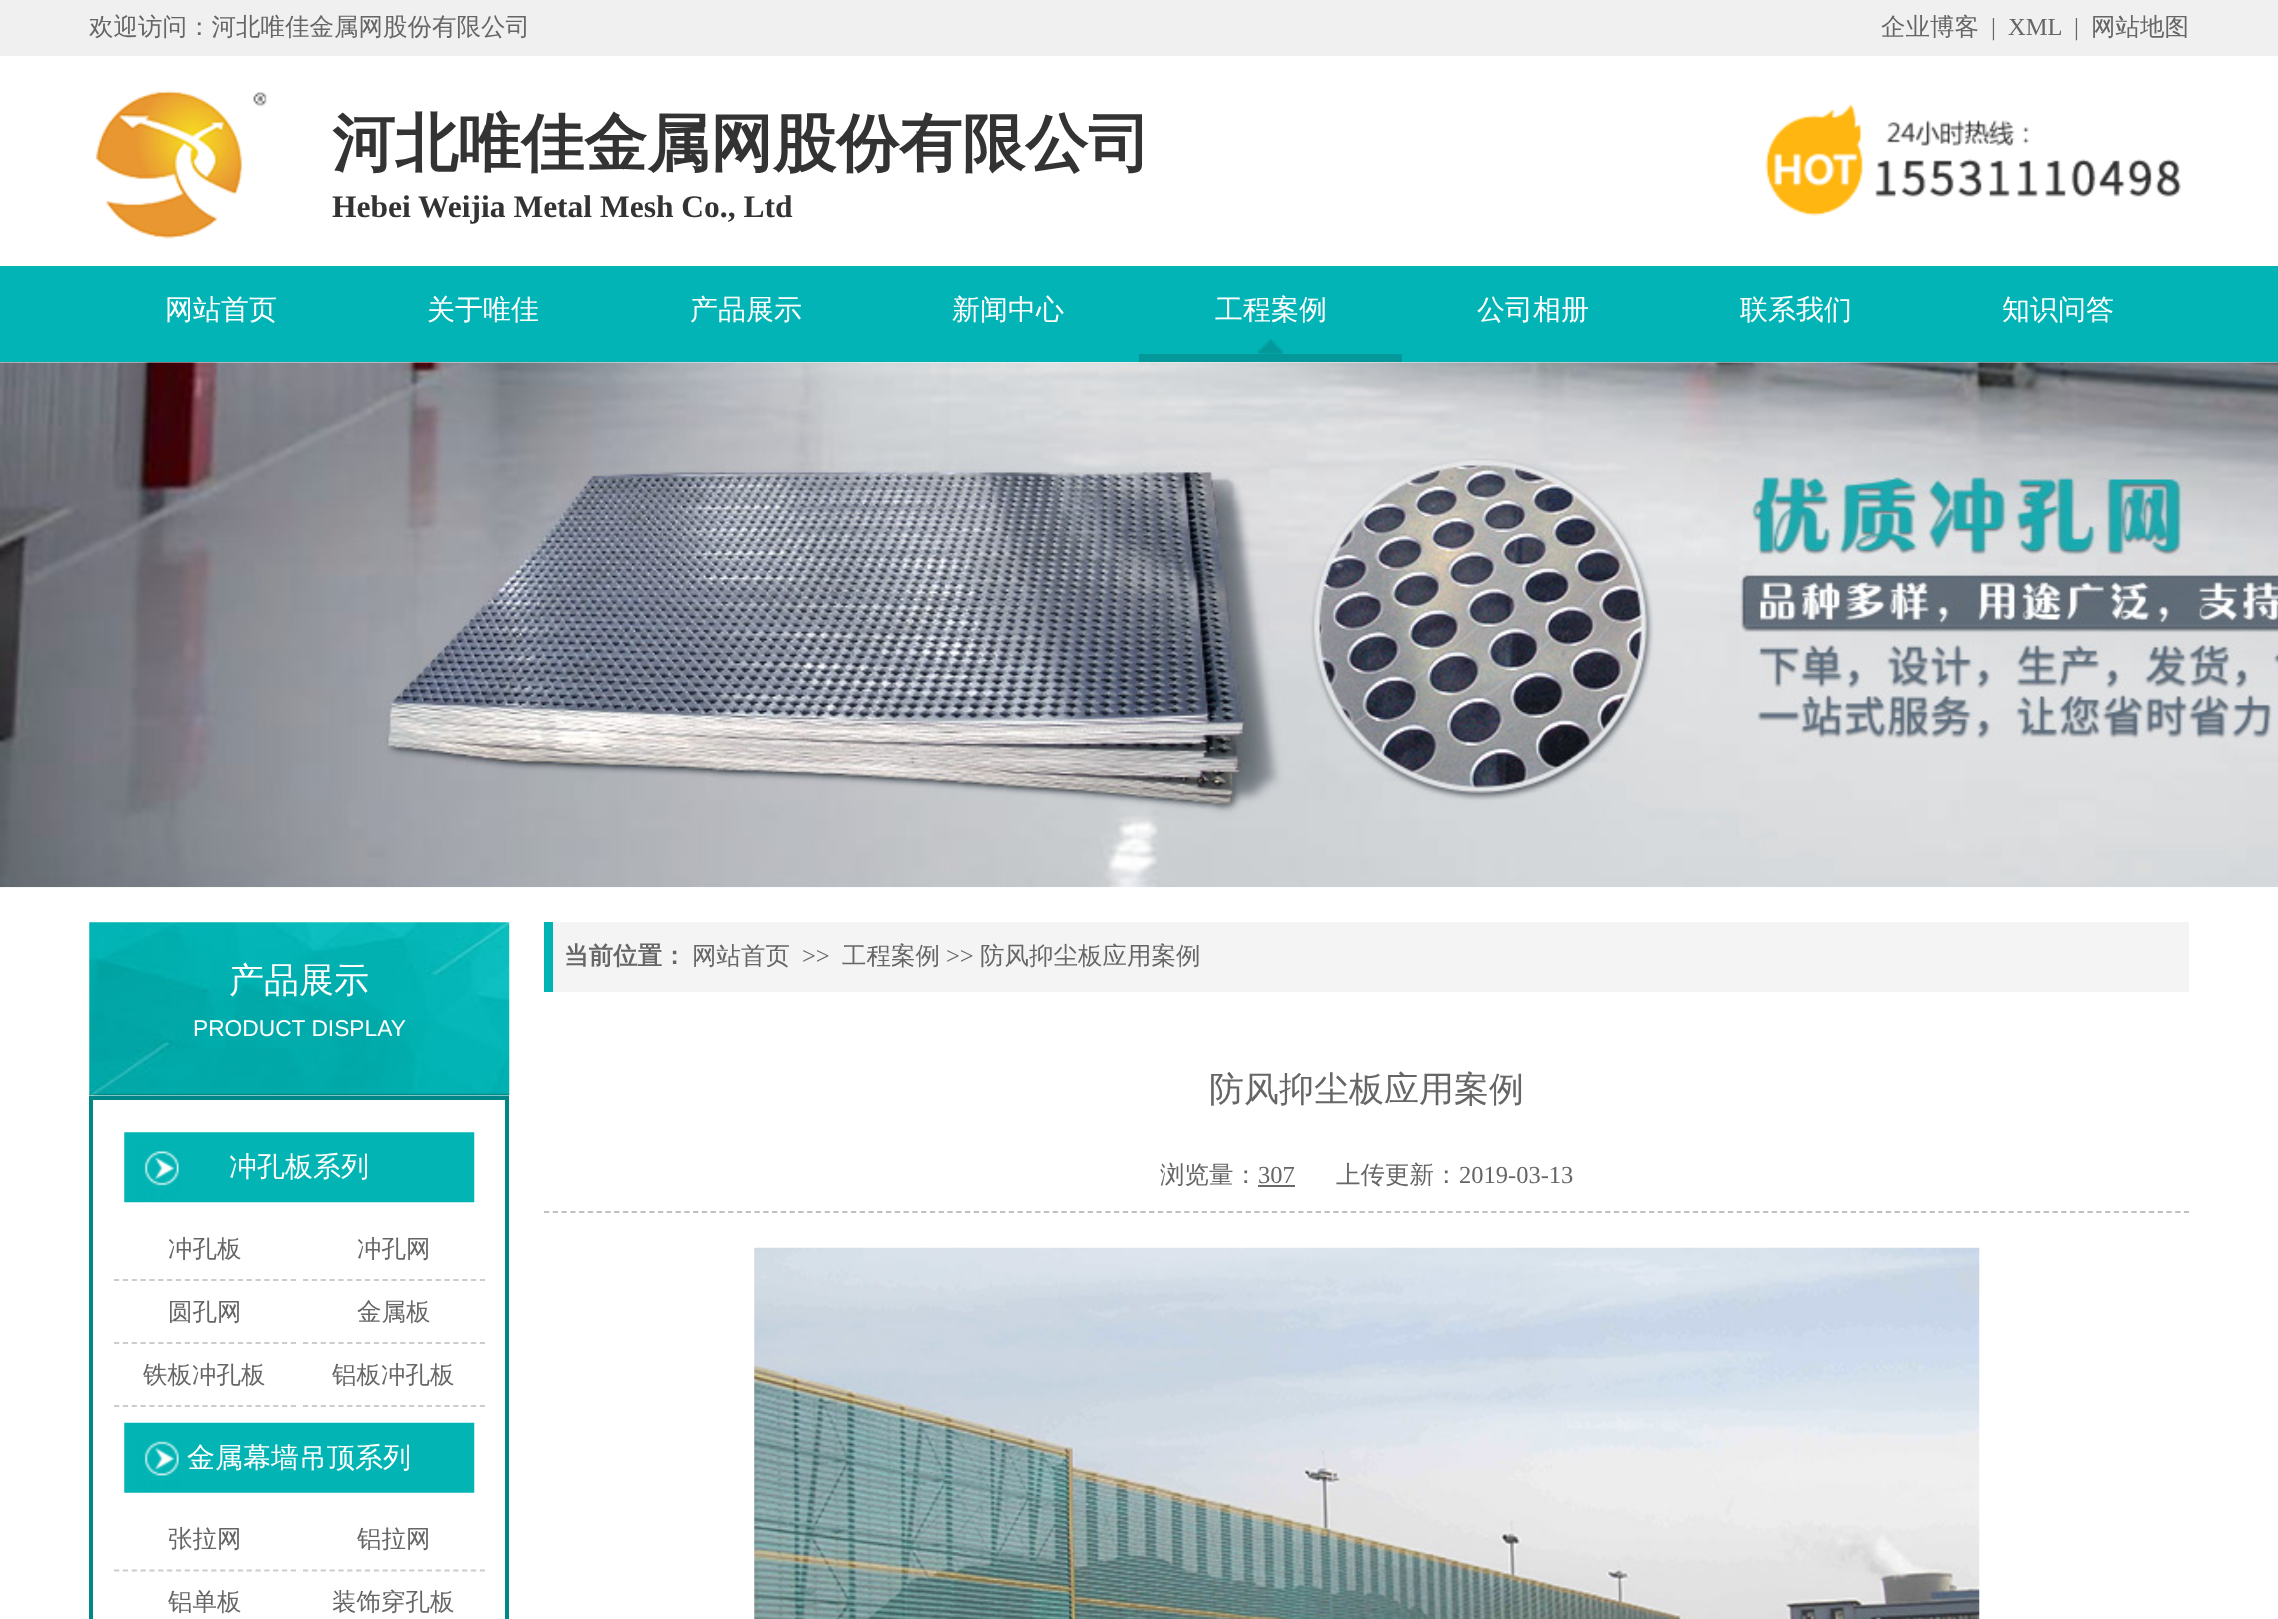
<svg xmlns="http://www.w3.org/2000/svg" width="2278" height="1619">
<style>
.a{font:500 24.5px WenQuanYi Zen Hei;fill:#666}
.b{font:24.5px Liberation Serif;fill:#666}
.c{font:bold 63px WenQuanYi Zen Hei;fill:#333}
.d{font:bold 31.5px Liberation Serif;fill:#333}
.e{font:500 28px WenQuanYi Zen Hei;fill:#fff}
.f{font:500 35px WenQuanYi Zen Hei;fill:#fff}
.g{font:22.75px Liberation Sans;fill:#fff}
.h{font:bold 24.5px WenQuanYi Zen Hei;fill:#666}
.i{font:500 35px WenQuanYi Zen Hei;fill:#666}
</style>
<rect width="100%" height="100%" fill="#fff"/>
<path fill="#f0f0f0" d="M0 0h2278v56H0z"/>
<image href="1.png" x="95" y="90" width="172" height="149"/>
<image href="2.png" x="1765" y="104" width="416" height="112"/>
<path fill="#02b4b6" d="M0 266h2278v96H0z"/>
<image href="3.png" x="1258" y="339" width="25" height="15"/>
<path fill="#04989a" d="M1139 354h263v8H1139z"/>
<image href="4.png" x="0" y="362" width="2278" height="526"/>
<image href="5.png" x="89" y="922" width="421" height="174"/>
<path fill="none" stroke="#008787" stroke-width="4" d="M91 1098h416v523H91z"/>
<image href="6.png" x="124" y="1132" width="351" height="71"/>
<path fill="none" stroke="#ccc" stroke-width="1.8" stroke-dasharray="5.25 3.59" d="M114 1280h182"/>
<path fill="none" stroke="#ccc" stroke-width="1.8" stroke-dasharray="5.25 3.59" d="M303 1280h182"/>
<path fill="none" stroke="#ccc" stroke-width="1.8" stroke-dasharray="5.25 3.59" d="M114 1343h182"/>
<path fill="none" stroke="#ccc" stroke-width="1.8" stroke-dasharray="5.25 3.59" d="M303 1343h182"/>
<path fill="none" stroke="#ccc" stroke-width="1.8" stroke-dasharray="5.25 3.59" d="M114 1406h182"/>
<path fill="none" stroke="#ccc" stroke-width="1.8" stroke-dasharray="5.25 3.59" d="M303 1406h182"/>
<image href="7.png" x="124" y="1422" width="351" height="71"/>
<path fill="none" stroke="#ccc" stroke-width="1.8" stroke-dasharray="5.25 3.59" d="M114 1570.5h182"/>
<path fill="none" stroke="#ccc" stroke-width="1.8" stroke-dasharray="5.25 3.59" d="M303 1570.5h182"/>
<path fill="#f4f4f4" d="M553 922h1636v70H553z"/>
<path fill="#01b4b4" d="M544 922h9v70H544z"/>
<path fill="none" stroke="#c1c1c1" stroke-width="1.8" stroke-dasharray="5.25 3.52" d="M544 1212h1645"/>
<path fill="#696868" d="M1258 1185h37v2H1258z"/>
<image href="8.png" x="754" y="1247" width="1226" height="372"/>
<text class="a" x="89" y="35">欢迎访问：河北唯佳金属网股份有限公司</text>
<text class="a" x="1881" y="35">企业博客</text>
<text class="b" x="1991" y="35">|</text>
<text class="b" x="2008" y="35">XML</text>
<text class="b" x="2074" y="35">|</text>
<text class="a" x="2091" y="35">网站地图</text>
<text class="c" x="332" y="165">河北唯佳金属网股份有限公司</text>
<text class="d" x="332" y="217">Hebei Weijia Metal Mesh Co., Ltd</text>
<text class="e" x="165" y="319">网站首页</text>
<text class="e" x="427" y="319">关于唯佳</text>
<text class="e" x="690" y="319">产品展示</text>
<text class="e" x="952" y="319">新闻中心</text>
<text class="e" x="1215" y="319">工程案例</text>
<text class="e" x="1477" y="319">公司相册</text>
<text class="e" x="1740" y="319">联系我们</text>
<text class="e" x="2002" y="319">知识问答</text>
<text class="f" x="229" y="992">产品展示</text>
<text class="g" x="193" y="1036">PRODUCT DISPLAY</text>
<text class="e" x="229" y="1176">冲孔板系列</text>
<text class="a" x="168" y="1257">冲孔板</text>
<text class="a" x="357" y="1257">冲孔网</text>
<text class="a" x="168" y="1320">圆孔网</text>
<text class="a" x="357" y="1320">金属板</text>
<text class="a" x="143" y="1383">铁板冲孔板</text>
<text class="a" x="332" y="1383">铝板冲孔板</text>
<text class="e" x="187" y="1467">金属幕墙吊顶系列</text>
<text class="a" x="168" y="1547">张拉网</text>
<text class="a" x="357" y="1547">铝拉网</text>
<text class="a" x="168" y="1610">铝单板</text>
<text class="a" x="332" y="1610">装饰穿孔板</text>
<text class="h" x="564" y="964">当前位置：</text>
<text class="a" x="692" y="964">网站首页</text>
<text class="b" x="802" y="964">&gt;&gt;</text>
<text class="a" x="842" y="964">工程案例</text>
<text class="b" x="946" y="964">&gt;&gt;</text>
<text class="a" x="980" y="964">防风抑尘板应用案例</text>
<text class="i" x="1209" y="1101">防风抑尘板应用案例</text>
<text class="a" x="1160" y="1183">浏览量：</text>
<text class="b" x="1258" y="1183">307</text>
<text class="a" x="1336" y="1183">上传更新：</text>
<text class="b" x="1459" y="1183">2019-03-13</text>
</svg>
